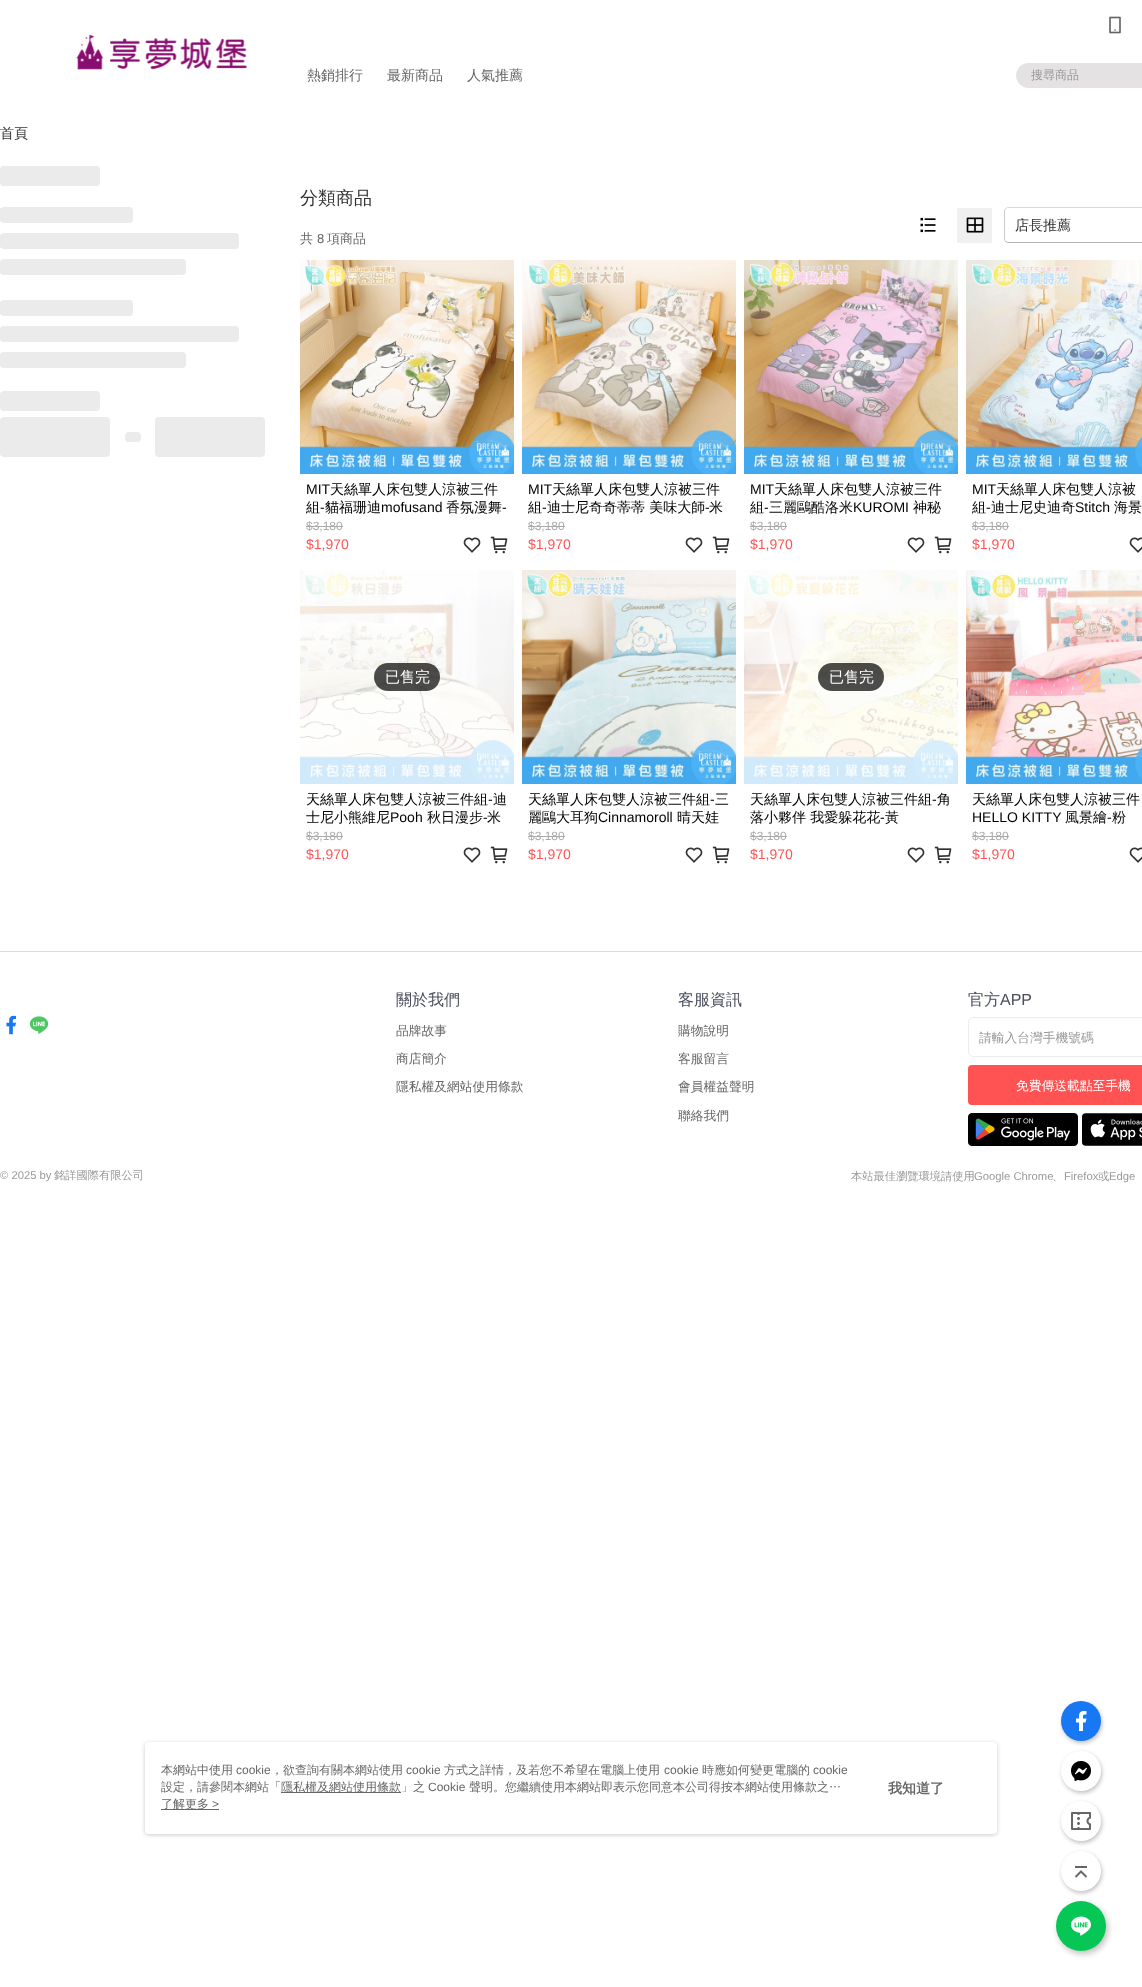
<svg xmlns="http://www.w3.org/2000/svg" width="1142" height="1987">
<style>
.a{font:500 14px WenQuanYi Zen Hei;fill:#666}
.b{font:500 12px WenQuanYi Zen Hei;fill:#999}
.c{font:500 14px WenQuanYi Zen Hei;fill:#333}
.d{font:500 18px WenQuanYi Zen Hei;fill:#333}
.e{font:500 13px WenQuanYi Zen Hei;fill:#666}
.f{font:13px Liberation Sans;fill:#666}
.g{font:14px Liberation Sans;fill:#000}
.h{font:500 14px WenQuanYi Zen Hei;fill:#000}
.i{font:12px Liberation Sans;fill:#aaa}
.j{font:14px Liberation Sans;fill:#ff5353}
.k{font:500 15px WenQuanYi Zen Hei;fill:#fff}
.l{font:500 16px WenQuanYi Zen Hei;fill:#4a4e5c}
.m{font:500 12.75px WenQuanYi Zen Hei;fill:#666}
.n{font:16px Liberation Sans;fill:#4a4e5c}
.o{font:500 12.75px WenQuanYi Zen Hei;fill:#999}
.p{font:500 12.75px WenQuanYi Zen Hei;fill:#fff}
.q{font:11.25px Liberation Sans;fill:#999}
.r{font:500 11.25px WenQuanYi Zen Hei;fill:#999}
.s{font:500 12px WenQuanYi Zen Hei;fill:#666}
.t{font:12px Liberation Sans;fill:#666}
.u{font:bold 14px WenQuanYi Zen Hei;fill:#666}
</style>
<defs>
<clipPath id="clip1"><rect y="207" width="133" height="16" rx="4"/></clipPath>
<linearGradient id="g1" gradientUnits="userSpaceOnUse" x1="-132" y1="215" x2="0.5" y2="215"><stop offset="0" stop-color="#ebebeb"/><stop offset="0.5" stop-color="#f5f5f5"/><stop offset="1" stop-color="#ebebeb"/></linearGradient>
<clipPath id="clip2"><rect y="233" width="239" height="16" rx="4"/></clipPath>
<linearGradient id="g2" gradientUnits="userSpaceOnUse" x1="-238" y1="241" x2="0.5" y2="241"><stop offset="0" stop-color="#ebebeb"/><stop offset="0.5" stop-color="#f5f5f5"/><stop offset="1" stop-color="#ebebeb"/></linearGradient>
<clipPath id="clip3"><rect y="259" width="186" height="16" rx="4"/></clipPath>
<linearGradient id="g3" gradientUnits="userSpaceOnUse" x1="-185" y1="267" x2="0.5" y2="267"><stop offset="0" stop-color="#ebebeb"/><stop offset="0.5" stop-color="#f5f5f5"/><stop offset="1" stop-color="#ebebeb"/></linearGradient>
<clipPath id="clip4"><rect y="300" width="133" height="16" rx="4"/></clipPath>
<linearGradient id="g4" gradientUnits="userSpaceOnUse" x1="-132" y1="308" x2="0.5" y2="308"><stop offset="0" stop-color="#ebebeb"/><stop offset="0.5" stop-color="#f5f5f5"/><stop offset="1" stop-color="#ebebeb"/></linearGradient>
<clipPath id="clip5"><rect y="326" width="239" height="16" rx="4"/></clipPath>
<linearGradient id="g5" gradientUnits="userSpaceOnUse" x1="-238" y1="334" x2="0.5" y2="334"><stop offset="0" stop-color="#ebebeb"/><stop offset="0.5" stop-color="#f5f5f5"/><stop offset="1" stop-color="#ebebeb"/></linearGradient>
<clipPath id="clip6"><rect y="352" width="186" height="16" rx="4"/></clipPath>
<linearGradient id="g6" gradientUnits="userSpaceOnUse" x1="-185" y1="360" x2="0.5" y2="360"><stop offset="0" stop-color="#ebebeb"/><stop offset="0.5" stop-color="#f5f5f5"/><stop offset="1" stop-color="#ebebeb"/></linearGradient>
<clipPath id="clip7"><path d="M979 1030h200v17H979z"/></clipPath>
</defs>
<rect width="100%" height="100%" fill="#fff"/>
<image href="1.png" x="76" y="34" width="172" height="36"/>
<image href="2.png" x="1109" y="16" width="12" height="18"/>
<rect fill="#e4e2e2" x="1016" y="63" width="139" height="25" rx="12.5"/>
<rect fill="#00000040" filter="blur(2px)" x="1062" y="1703" width="40" height="40" rx="20"/>
<circle fill="#1877f2" cx="1081" cy="1721" r="20"/>
<image href="3.png" x="1076" y="1711" width="11" height="20"/>
<rect fill="#00000040" filter="blur(2px)" x="1062" y="1753" width="40" height="40" rx="20"/>
<circle fill="#fff" cx="1081" cy="1771" r="20"/>
<image href="4.png" x="1071" y="1761" width="20" height="20"/>
<rect fill="#00000040" filter="blur(2px)" x="1062" y="1803" width="40" height="40" rx="20"/>
<circle fill="#fff" cx="1081" cy="1821" r="20"/>
<image href="5.png" x="1071" y="1812" width="20" height="18"/>
<rect fill="#00000040" filter="blur(2px)" x="1062" y="1853" width="40" height="40" rx="20"/>
<circle fill="#fff" cx="1081" cy="1871" r="20"/>
<image href="6.png" x="1074" y="1866" width="14" height="12"/>
<rect fill="#00000040" filter="blur(3px)" x="1058" y="1904" width="50" height="50" rx="25"/>
<circle fill="#06c755" cx="1081" cy="1926" r="25"/>
<image href="7.png" x="1071" y="1916" width="20" height="20"/>
<rect fill="#ebebeb" y="166" width="100" height="20" rx="4"/>
<rect fill="#ebebeb" y="207" width="133" height="16" rx="4"/>
<g clip-path="url(#clip1)">
<path fill="url(#g1)" d="M0 207h1v16H0z"/>
</g>
<rect fill="#ebebeb" y="233" width="239" height="16" rx="4"/>
<g clip-path="url(#clip2)">
<path fill="url(#g2)" d="M0 233h1v16H0z"/>
</g>
<rect fill="#ebebeb" y="259" width="186" height="16" rx="4"/>
<g clip-path="url(#clip3)">
<path fill="url(#g3)" d="M0 259h1v16H0z"/>
</g>
<rect fill="#ebebeb" y="300" width="133" height="16" rx="4"/>
<g clip-path="url(#clip4)">
<path fill="url(#g4)" d="M0 300h1v16H0z"/>
</g>
<rect fill="#ebebeb" y="326" width="239" height="16" rx="4"/>
<g clip-path="url(#clip5)">
<path fill="url(#g5)" d="M0 326h1v16H0z"/>
</g>
<rect fill="#ebebeb" y="352" width="186" height="16" rx="4"/>
<g clip-path="url(#clip6)">
<path fill="url(#g6)" d="M0 352h1v16H0z"/>
</g>
<rect fill="#ebebeb" y="391" width="100" height="20" rx="4"/>
<rect fill="#ebebeb" y="417" width="110" height="40" rx="4"/>
<rect fill="#ebebeb" x="125" y="432" width="16" height="10" rx="4"/>
<rect fill="#ebebeb" x="155" y="417" width="110" height="40" rx="4"/>
<image href="8.png" x="920" y="217" width="16" height="16"/>
<path fill="#f0f0f0" d="M957 208h35v35H957z"/>
<image href="9.png" x="966" y="217" width="18" height="16"/>
<path fill="none" stroke="#d9d9d9" d="M1005.5 208.5l2-1h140.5h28l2.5 1"/>
<path fill="none" stroke="#b3b3b3" d="M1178.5 241.5l-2.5 1h-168.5l-2-1"/>
<path fill="none" stroke="#ccc" d="M1005.5 241.5c-.5-.5-1-1.5-1-2.5v-28c0-1 .5-2 1-2.5"/>
<image href="10.png" x="300" y="260" width="214" height="214"/>
<path fill="#aaa" d="M306 526h37v1H306z"/>
<image href="11.png" x="463" y="537" width="18" height="16"/>
<image href="12.png" x="490" y="536" width="18" height="18"/>
<image href="13.png" x="522" y="260" width="214" height="214"/>
<path fill="#aaa" d="M528 526h37v1H528z"/>
<image href="11.png" x="685" y="537" width="18" height="16"/>
<image href="12.png" x="712" y="536" width="18" height="18"/>
<image href="14.png" x="744" y="260" width="214" height="214"/>
<path fill="#aaa" d="M750 526h37v1H750z"/>
<image href="11.png" x="907" y="537" width="18" height="16"/>
<image href="12.png" x="934" y="536" width="18" height="18"/>
<image href="15.png" x="966" y="260" width="176" height="214"/>
<path fill="#aaa" d="M972 526h37v1H972z"/>
<image href="16.png" x="1129" y="537" width="13" height="16"/>
<image href="17.png" x="300" y="570" width="214" height="214"/>
<rect fill="#000000b3" x="374" y="663" width="66" height="28" rx="14"/>
<path fill="#aaa" d="M306 836h37v1H306z"/>
<image href="11.png" x="463" y="847" width="18" height="16"/>
<image href="12.png" x="490" y="846" width="18" height="18"/>
<image href="18.png" x="522" y="570" width="214" height="214"/>
<path fill="#aaa" d="M528 836h37v1H528z"/>
<image href="11.png" x="685" y="847" width="18" height="16"/>
<image href="12.png" x="712" y="846" width="18" height="18"/>
<image href="19.png" x="744" y="570" width="214" height="214"/>
<rect fill="#000000b3" x="818" y="663" width="66" height="28" rx="14"/>
<path fill="#aaa" d="M750 836h37v1H750z"/>
<image href="11.png" x="907" y="847" width="18" height="16"/>
<image href="12.png" x="934" y="846" width="18" height="18"/>
<image href="20.png" x="966" y="570" width="176" height="214"/>
<path fill="#aaa" d="M972 836h37v1H972z"/>
<image href="16.png" x="1129" y="847" width="13" height="16"/>
<path fill="#dadada" d="M0 951h1142v1H0z"/>
<image href="21.png" x="6" y="1015" width="11" height="20"/>
<image href="22.png" x="29" y="1016" width="20" height="18"/>
<rect fill="none" stroke="#ededed" x="968.5" y="1017.5" width="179" height="39" rx="4.5"/>
<rect fill="#ff5353" x="968" y="1065" width="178" height="40" rx="4"/>
<image href="23.png" x="968" y="1113" width="110" height="33"/>
<image href="24.png" x="1082" y="1113" width="60" height="33"/>
<rect fill="#97979780" filter="blur(2px)" x="145" y="1743" width="852" height="92" rx="4"/>
<rect fill="#fff" x="145" y="1742" width="852" height="92" rx="4"/>
<path fill="#666" d="M281 1792h120v1H281z"/>
<path fill="#666" d="M161 1809h58v1H161z"/>
<text class="a" x="307" y="80">熱銷排行</text>
<text class="a" x="387" y="80">最新商品</text>
<text class="a" x="467" y="80">人氣推薦</text>
<text class="b" x="1031" y="79">搜尋商品</text>
<text class="c" x="0" y="138">首頁</text>
<text class="d" x="300" y="204">分類商品</text>
<text class="c" x="1015" y="230">店長推薦</text>
<text class="e" x="300" y="243">共</text>
<text class="f" x="317" y="243">8</text>
<text class="e" x="327" y="243">項商品</text>
<text class="g" x="306" y="494">MIT</text>
<text class="h" x="330" y="494">天絲單人床包雙人涼被三件</text>
<text class="h" x="306" y="512">組</text>
<text class="g" x="320" y="512">-</text>
<text class="h" x="325" y="512">貓福珊迪</text>
<text class="g" x="381" y="512">mofusand</text>
<text class="h" x="446" y="512">香氛漫舞</text>
<text class="g" x="502" y="512">-</text>
<text class="i" x="306" y="530">$3,180</text>
<text class="j" x="306" y="549">$1,970</text>
<text class="g" x="528" y="494">MIT</text>
<text class="h" x="552" y="494">天絲單人床包雙人涼被三件</text>
<text class="h" x="528" y="512">組</text>
<text class="g" x="542" y="512">-</text>
<text class="h" x="547" y="512">迪士尼奇奇蒂蒂 美味大師</text>
<text class="g" x="705" y="512">-</text>
<text class="h" x="709" y="512">米</text>
<text class="i" x="528" y="530">$3,180</text>
<text class="j" x="528" y="549">$1,970</text>
<text class="g" x="750" y="494">MIT</text>
<text class="h" x="774" y="494">天絲單人床包雙人涼被三件</text>
<text class="h" x="750" y="512">組</text>
<text class="g" x="764" y="512">-</text>
<text class="h" x="769" y="512">三麗鷗酷洛米</text>
<text class="g" x="853" y="512">KUROMI</text>
<text class="h" x="913" y="512">神秘</text>
<text class="i" x="750" y="530">$3,180</text>
<text class="j" x="750" y="549">$1,970</text>
<text class="g" x="972" y="494">MIT</text>
<text class="h" x="996" y="494">天絲單人床包雙人涼被</text>
<text class="h" x="972" y="512">組</text>
<text class="g" x="986" y="512">-</text>
<text class="h" x="991" y="512">迪士尼史迪奇</text>
<text class="g" x="1075" y="512">Stitch</text>
<text class="h" x="1114" y="512">海景</text>
<text class="i" x="972" y="530">$3,180</text>
<text class="j" x="972" y="549">$1,970</text>
<text class="k" x="385" y="682">已售完</text>
<text class="h" x="306" y="804">天絲單人床包雙人涼被三件組</text>
<text class="g" x="488" y="804">-</text>
<text class="h" x="493" y="804">迪</text>
<text class="h" x="306" y="822">士尼小熊維尼</text>
<text class="g" x="390" y="822">Pooh</text>
<text class="h" x="427" y="822">秋日漫步</text>
<text class="g" x="483" y="822">-</text>
<text class="h" x="487" y="822">米</text>
<text class="i" x="306" y="840">$3,180</text>
<text class="j" x="306" y="859">$1,970</text>
<text class="h" x="528" y="804">天絲單人床包雙人涼被三件組</text>
<text class="g" x="710" y="804">-</text>
<text class="h" x="715" y="804">三</text>
<text class="h" x="528" y="822">麗鷗大耳狗</text>
<text class="g" x="598" y="822">Cinnamoroll</text>
<text class="h" x="677" y="822">晴天娃</text>
<text class="i" x="528" y="840">$3,180</text>
<text class="j" x="528" y="859">$1,970</text>
<text class="k" x="829" y="682">已售完</text>
<text class="h" x="750" y="804">天絲單人床包雙人涼被三件組</text>
<text class="g" x="932" y="804">-</text>
<text class="h" x="937" y="804">角</text>
<text class="h" x="750" y="822">落小夥伴 我愛躲花花</text>
<text class="g" x="880" y="822">-</text>
<text class="h" x="885" y="822">黃</text>
<text class="i" x="750" y="840">$3,180</text>
<text class="j" x="750" y="859">$1,970</text>
<text class="h" x="972" y="804">天絲單人床包雙人涼被三件</text>
<text class="g" x="972" y="822">HELLO KITTY</text>
<text class="h" x="1065" y="822">風景繪</text>
<text class="g" x="1107" y="822">-</text>
<text class="h" x="1112" y="822">粉</text>
<text class="i" x="972" y="840">$3,180</text>
<text class="j" x="972" y="859">$1,970</text>
<text class="l" x="396" y="1005">關於我們</text>
<text class="m" x="396" y="1035">品牌故事</text>
<text class="m" x="396" y="1063">商店簡介</text>
<text class="m" x="396" y="1091">隱私權及網站使用條款</text>
<text class="l" x="678" y="1005">客服資訊</text>
<text class="m" x="678" y="1035">購物說明</text>
<text class="m" x="678" y="1063">客服留言</text>
<text class="m" x="678" y="1091">會員權益聲明</text>
<text class="m" x="678" y="1120">聯絡我們</text>
<text class="l" x="968" y="1005">官方</text>
<text class="n" x="1000" y="1005">APP</text>
<g clip-path="url(#clip7)">
<text class="o" x="979" y="1042">請輸入台灣手機號碼</text>
</g>
<text class="p" x="1016" y="1090">免費傳送載點至手機</text>
<text class="q" x="0" y="1179">© 2025 by</text>
<text class="r" x="54" y="1179">銘詳國際有限公司</text>
<text class="r" x="851" y="1180">本站最佳瀏覽環境請使用</text>
<text class="q" x="974" y="1180">Google Chrome</text>
<text class="r" x="1052" y="1180">、</text>
<text class="q" x="1064" y="1180">Firefox</text>
<text class="r" x="1098" y="1180">或</text>
<text class="q" x="1109" y="1180">Edge</text>
<text class="s" x="161" y="1774">本網站中使用</text>
<text class="t" x="236" y="1774">cookie</text>
<text class="s" x="271" y="1774">，欲查詢有關本網站使用</text>
<text class="t" x="406" y="1774">cookie</text>
<text class="s" x="444" y="1774">方式之詳情，及若您不希望在電腦上使用</text>
<text class="t" x="664" y="1774">cookie</text>
<text class="s" x="702" y="1774">時應如何變更電腦的</text>
<text class="t" x="813" y="1774">cookie</text>
<text class="s" x="161" y="1791">設定，請參閱本網站「</text>
<text class="s" x="281" y="1791">隱私權及網站使用條款」之</text>
<text class="t" x="428" y="1791">Cookie</text>
<text class="s" x="469" y="1791">聲明。您繼續使用本網站即表示您同意本公司得按本網站使用條款之…</text>
<text class="s" x="161" y="1808">了解更多</text>
<text class="t" x="212" y="1808">&gt;</text>
<text class="u" x="888" y="1793">我知道了</text>
</svg>
